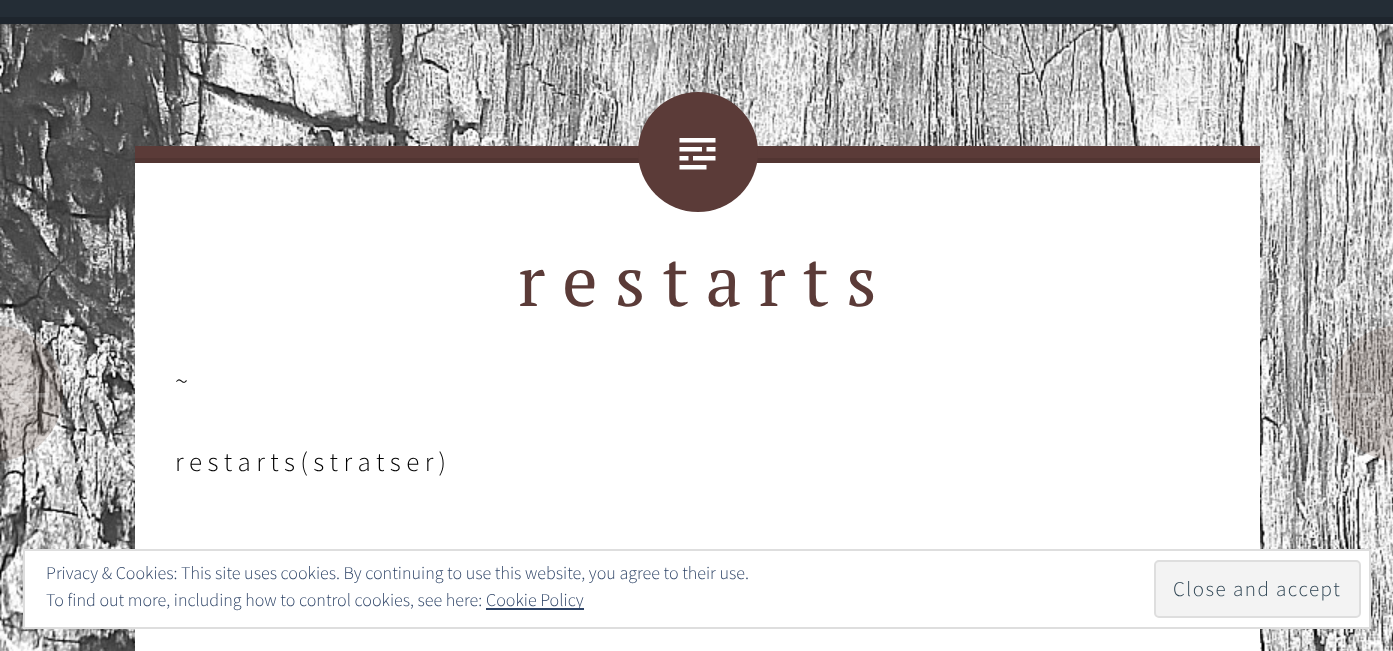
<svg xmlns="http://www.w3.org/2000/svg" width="1393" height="651">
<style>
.a{font:70.5px PT Serif;fill:#5b3b38}
.b{font:300 27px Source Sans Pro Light;fill:#000}
.c{font:300 18px Source Sans Pro Light;fill:#2e4467}
.d{font:300 21px Source Sans Pro Light;letter-spacing:1.5px;fill:#2e4453}
</style>
<rect width="100%" height="100%" fill="#fff"/>
<image href="1.png" x="0" y="24" width="1393" height="627"/>
<path fill="#242d36" d="M0 0h1393v17H0z"/>
<path fill="#1e252d" d="M0 17h1393v7H0z"/>
<path fill="#fff" d="M135 163h1125v488H135z"/>
<path fill="#5b3b38" d="M135 146h1125v12H135z"/>
<path fill="#523532" d="M135 158h1125v5H135z"/>
<circle fill="#5b3b38" cx="698" cy="152" r="60"/>
<image href="2.png" x="679" y="138" width="37" height="32"/>
<rect fill="#755c5140" x="-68" y="326" width="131" height="135" rx="67.5"/>
<path fill="#ffffff40" d="M27 378l3 3l-12 12h31.5v4.5h-31.5l12 12l-3 3l-17.5-17.5z"/>
<rect fill="#755c5140" x="1331" y="326" width="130" height="135" rx="67.5"/>
<path fill="#ffffff40" d="M1366.5 378l17.5 17l-17.5 17.5l-3-3l12-12h-31.5v-4.5h31.5l-12-12z"/>
<path fill="#fff" stroke="#dedede" stroke-width="2" d="M24 550h1346v78H24z"/>
<path fill="#2e4467" d="M486 608h98v2H486z"/>
<rect fill="#f3f3f3" stroke="#dedede" stroke-width="2" x="1155" y="561" width="205" height="56" rx="4"/>
<text class="a" x="518" y="306">r e s t a r t s</text>
<text class="b" x="175" y="390">~</text>
<text class="b" x="175" y="471">r e s t a r t s ( s t r a t s e r )</text>
<text class="c" x="46" y="579">Privacy &amp; Cookies: This site uses cookies. By continuing to use this website, you agree to their use.</text>
<text class="c" x="46" y="606">To find out more, including how to control cookies, see here:</text>
<text class="c" x="486" y="606">Cookie Policy</text>
<text class="d" x="1173" y="596">Close and accept</text>
</svg>
